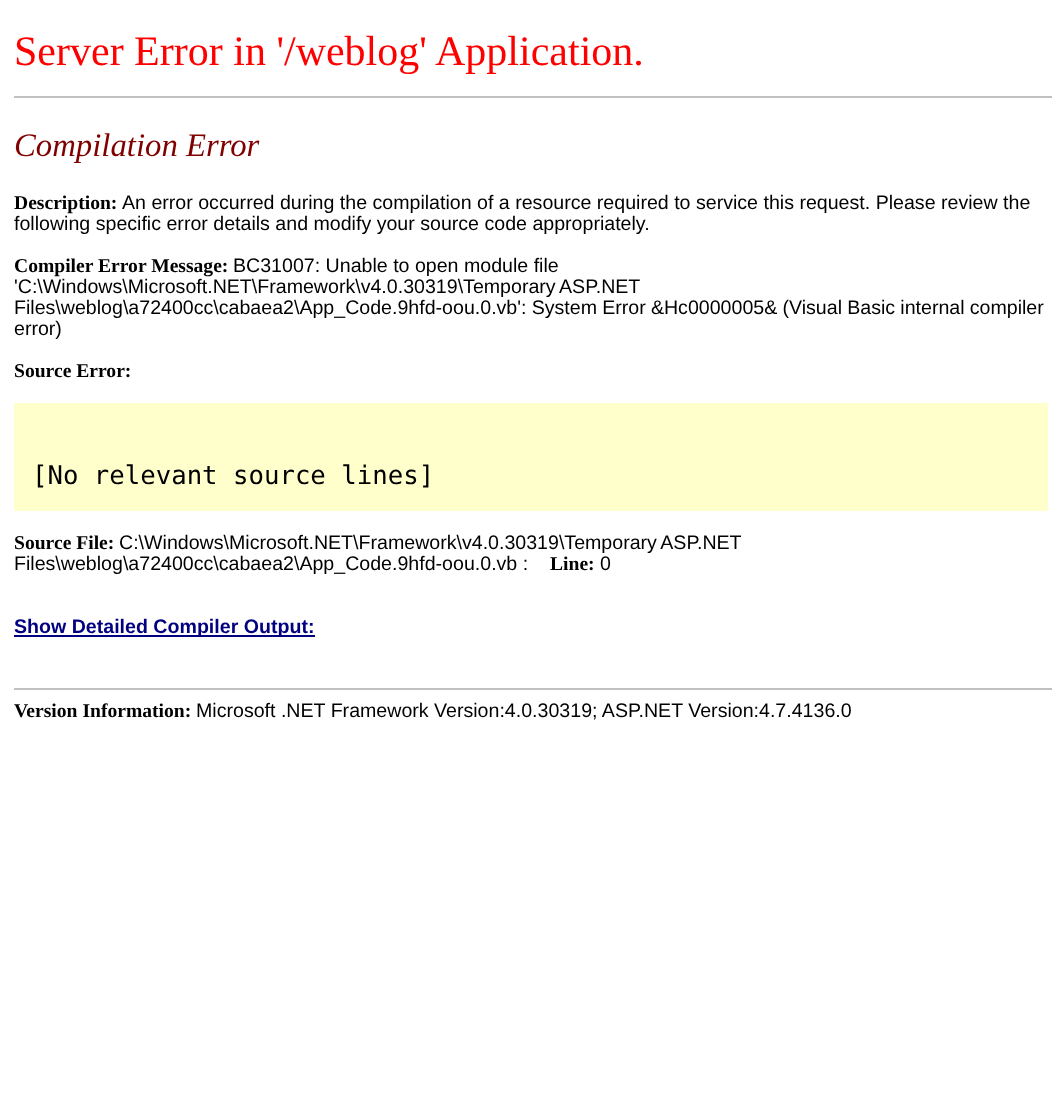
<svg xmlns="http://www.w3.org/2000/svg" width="1062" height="1110">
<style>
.a{font:42px Liberation Serif;fill:#f00}
.b{font:italic 32.75px Liberation Serif;fill:#800000}
.c{font:bold 19.6px Liberation Serif;fill:#000}
.d{font:19.6px Liberation Sans;fill:#000}
.e{font:25.7px DejaVu Sans Mono;fill:#000}
.f{font:bold 19.6px Liberation Sans;fill:#000080}
</style>
<rect width="100%" height="100%" fill="#fff"/>
<path fill="#c0c0c0" d="M14 96h1038v2H14z"/>
<path fill="#ffc" d="M14 403h1034v108H14z"/>
<path fill="#000080" d="M14 635h301v2H14z"/>
<path fill="#c0c0c0" d="M14 688h1038v2H14z"/>
<text class="a" x="14" y="65">Server Error in '/weblog' Application.</text>
<text class="b" x="14" y="156">Compilation Error</text>
<text class="c" x="14" y="209">Description:</text>
<text class="d" x="122" y="209">An error occurred during the compilation of a resource required to service this request. Please review the</text>
<text class="d" x="14" y="230">following specific error details and modify your source code appropriately.</text>
<text class="c" x="14" y="272">Compiler Error Message:</text>
<text class="d" x="233" y="272">BC31007: Unable to open module file</text>
<text class="d" x="14" y="293" word-spacing="-1">'C:\Windows\Microsoft.NET\Framework\v4.0.30319\Temporary ASP.NET</text>
<text class="d" x="14" y="314" word-spacing="-0.25">Files\weblog\a72400cc\cabaea2\App_Code.9hfd-oou.0.vb': System Error &amp;Hc0000005&amp; (Visual Basic internal compiler</text>
<text class="d" x="14" y="335">error)</text>
<text class="c" x="14" y="377">Source Error:</text>
<text class="e" x="32" y="484">[No relevant source lines]</text>
<text class="c" x="14" y="549">Source File:</text>
<text class="d" x="119" y="549" word-spacing="-1">C:\Windows\Microsoft.NET\Framework\v4.0.30319\Temporary ASP.NET</text>
<text class="d" x="14" y="570">Files\weblog\a72400cc\cabaea2\App_Code.9hfd-oou.0.vb :</text>
<text class="c" x="550" y="570">Line:</text>
<text class="d" x="600" y="570">0</text>
<text class="f" x="14" y="633">Show Detailed Compiler Output:</text>
<text class="c" x="14" y="717">Version Information:</text>
<text class="d" x="196" y="717">Microsoft .NET Framework Version:4.0.30319; ASP.NET Version:4.7.4136.0</text>
</svg>
